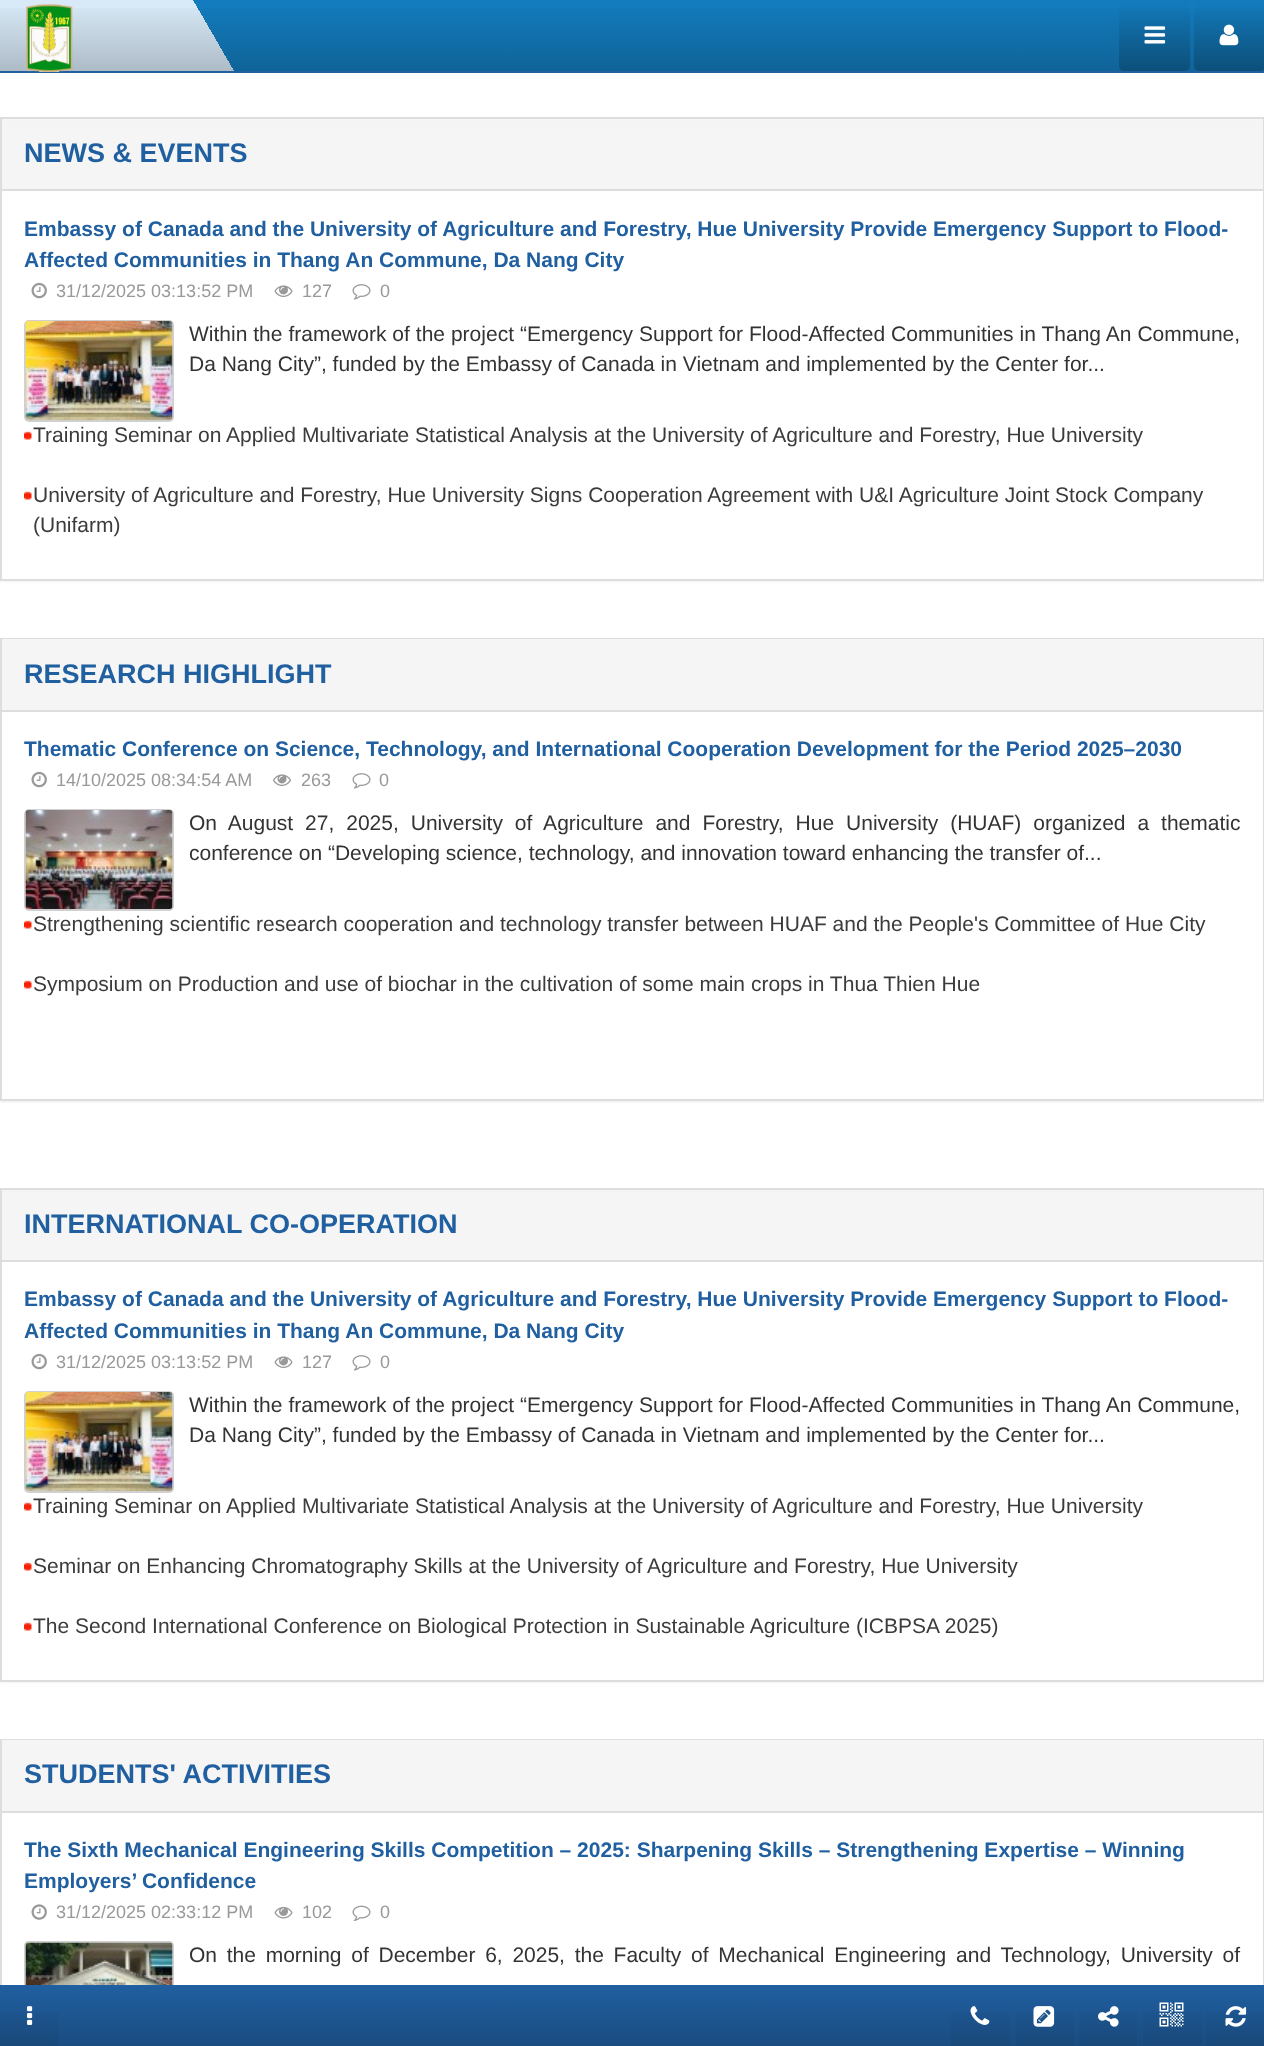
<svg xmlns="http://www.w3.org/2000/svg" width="1264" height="2046">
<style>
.a{font:bold 27px Liberation Sans;fill:#205fa0}
.b{font:bold 21px Liberation Sans;fill:#205fa0}
.c{font:18px Liberation Sans;fill:#999}
.d{font:21px Liberation Sans;fill:#333}
.e{font:21px Liberation Sans;fill:#3b3b3b}
</style>
<defs>
<linearGradient id="g1" gradientUnits="userSpaceOnUse" x1="142" y1="319" x2="1122" y2="-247"><stop offset="0" stop-color="#d8eaf8"/><stop offset="0.18" stop-color="#d8eaf8"/><stop offset="0.18" stop-color="#137cbe"/><stop offset="1" stop-color="#137cbe"/></linearGradient>
<linearGradient id="g2" gradientUnits="userSpaceOnUse" x1="632" y1="0" x2="632" y2="71"><stop offset="0" stop-color="#000" stop-opacity="0"/><stop offset="1" stop-color="#000" stop-opacity="0.2"/></linearGradient>
<linearGradient id="g3" gradientUnits="userSpaceOnUse" x1="1154" y1="0" x2="1154" y2="71"><stop offset="0" stop-color="#000" stop-opacity="0"/><stop offset="1" stop-color="#000" stop-opacity="0.2"/></linearGradient>
<linearGradient id="g4" gradientUnits="userSpaceOnUse" x1="1229" y1="0" x2="1229" y2="71"><stop offset="0" stop-color="#000" stop-opacity="0"/><stop offset="1" stop-color="#000" stop-opacity="0.2"/></linearGradient>
<clipPath id="clip1"><path d="M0 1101h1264v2H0z"/></clipPath>
<linearGradient id="g5" gradientUnits="userSpaceOnUse" x1="632" y1="1986" x2="632" y2="2046"><stop offset="0" stop-color="#205fa0"/><stop offset="1" stop-color="#1a4c80"/></linearGradient>
<linearGradient id="g6" gradientUnits="userSpaceOnUse" x1="29" y1="1988" x2="29" y2="2046"><stop offset="0" stop-color="#000" stop-opacity="0"/><stop offset="1" stop-color="#000" stop-opacity="0.05"/></linearGradient>
<linearGradient id="g7" gradientUnits="userSpaceOnUse" x1="980" y1="1988" x2="980" y2="2046"><stop offset="0" stop-color="#000" stop-opacity="0"/><stop offset="1" stop-color="#000" stop-opacity="0.05"/></linearGradient>
<linearGradient id="g8" gradientUnits="userSpaceOnUse" x1="1045" y1="1988" x2="1045" y2="2046"><stop offset="0" stop-color="#000" stop-opacity="0"/><stop offset="1" stop-color="#000" stop-opacity="0.05"/></linearGradient>
<linearGradient id="g9" gradientUnits="userSpaceOnUse" x1="1108" y1="1988" x2="1108" y2="2046"><stop offset="0" stop-color="#000" stop-opacity="0"/><stop offset="1" stop-color="#000" stop-opacity="0.05"/></linearGradient>
<linearGradient id="g10" gradientUnits="userSpaceOnUse" x1="1172" y1="1986" x2="1172" y2="2045"><stop offset="0" stop-color="#000" stop-opacity="0"/><stop offset="1" stop-color="#000" stop-opacity="0.05"/></linearGradient>
<linearGradient id="g11" gradientUnits="userSpaceOnUse" x1="1235" y1="1988" x2="1235" y2="2046"><stop offset="0" stop-color="#000" stop-opacity="0"/><stop offset="1" stop-color="#000" stop-opacity="0.05"/></linearGradient>
</defs>
<rect width="100%" height="100%" fill="#fff"/>
<path fill="url(#g1)" d="M0 0h1264v71H0z"/>
<path fill="url(#g2)" d="M0 8h1264v63H0z"/>
<path fill="#205fa0" d="M0 71h1264v2H0z"/>
<image href="1.png" x="26" y="4" width="47" height="68"/>
<rect fill="url(#g3)" x="1119" width="71" height="71" rx="5"/>
<image href="2.png" x="1144" y="26" width="22" height="18"/>
<rect fill="url(#g4)" x="1194" width="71" height="71" rx="5"/>
<image href="3.png" x="1219" y="24" width="20" height="22"/>
<path fill="#0000000d" filter="blur(1px)" d="M0 119h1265v463H0z"/>
<path fill="#fff" d="M2 191h1261v388H2z"/>
<path fill="none" stroke="#ddd" stroke-width="2" d="M1 118h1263v462H1z"/>
<path fill="#f5f5f5" d="M2 121h1261v68H2z"/>
<path fill="#ddd" d="M2 189h1261v2H2z"/>
<image href="4.png" x="31" y="282" width="16" height="17"/>
<image href="5.png" x="274" y="285" width="19" height="12"/>
<image href="6.png" x="352" y="284" width="19" height="16"/>
<rect fill="#d0d0d0" x="24" y="320" width="150" height="102" rx="5"/>
<image href="7.png" x="25" y="321" width="148" height="99"/>
<image href="8.png" x="24" y="431" width="8" height="9"/>
<image href="8.png" x="24" y="491" width="8" height="9"/>
<g clip-path="url(#clip1)">
<path fill="#0000000d" filter="blur(1px)" d="M0 639h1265v464H0z"/>
</g>
<path fill="none" stroke="#ddd" stroke-width="2" d="M1 639h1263v461H1z"/>
<path fill="#f5f5f5" d="M2 639h1261v71H2z"/>
<path fill="#ddd" d="M2 710h1261v2H2z"/>
<image href="4.png" x="31" y="771" width="16" height="17"/>
<image href="9.png" x="273" y="774" width="18" height="12"/>
<image href="6.png" x="352" y="773" width="19" height="16"/>
<rect fill="#d0d0d0" x="24" y="809" width="150" height="102" rx="5"/>
<image href="10.png" x="25" y="810" width="148" height="99"/>
<image href="8.png" x="24" y="920" width="8" height="9"/>
<image href="8.png" x="24" y="980" width="8" height="9"/>
<path fill="#0000000d" filter="blur(1px)" d="M0 1190h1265v493H0z"/>
<path fill="#fff" d="M2 1262h1261v418H2z"/>
<path fill="none" stroke="#ddd" stroke-width="2" d="M1 1189h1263v492H1z"/>
<path fill="#f5f5f5" d="M2 1192h1261v68H2z"/>
<path fill="#ddd" d="M2 1260h1261v2H2z"/>
<image href="4.png" x="31" y="1353" width="16" height="17"/>
<image href="5.png" x="274" y="1356" width="19" height="12"/>
<image href="6.png" x="352" y="1355" width="19" height="16"/>
<rect fill="#d0d0d0" x="24" y="1391" width="150" height="102" rx="5"/>
<image href="11.png" x="25" y="1392" width="148" height="99"/>
<image href="8.png" x="24" y="1502" width="8" height="9"/>
<image href="8.png" x="24" y="1562" width="8" height="9"/>
<image href="8.png" x="24" y="1622" width="8" height="9"/>
<path fill="none" stroke="#ddd" stroke-width="2" d="M1 1740h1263v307H1z"/>
<path fill="#f5f5f5" d="M2 1740h1261v71H2z"/>
<path fill="#ddd" d="M2 1811h1261v2H2z"/>
<image href="12.png" x="31" y="1904" width="16" height="16"/>
<image href="13.png" x="274" y="1906" width="19" height="13"/>
<image href="14.png" x="352" y="1905" width="19" height="16"/>
<path fill="#d0d0d0" d="M29 1941h140c3 0 5 2 5 5v100h-150v-100c0-3 2-5 5-5z"/>
<image href="15.png" x="25" y="1942" width="148" height="43"/>
<path fill="url(#g5)" d="M0 1987h1264v59H0z"/>
<path fill="#205fa0" d="M0 1985h1264v2H0z"/>
<path fill="url(#g6)" d="M0 2013h59v33H0z"/>
<image href="16.png" x="27" y="2006" width="6" height="19"/>
<path fill="url(#g7)" d="M951 2013h59v33H951z"/>
<image href="17.png" x="970" y="2006" width="20" height="19"/>
<path fill="url(#g8)" d="M1016 2013h58v33H1016z"/>
<image href="18.png" x="1033" y="2006" width="22" height="21"/>
<path fill="url(#g9)" d="M1079 2013h58v33H1079z"/>
<image href="19.png" x="1098" y="2006" width="21" height="21"/>
<path fill="url(#g10)" d="M1143 2011h59v34H1143z"/>
<image href="20.png" x="1159" y="2002" width="25" height="25"/>
<path fill="url(#g11)" d="M1206 2013h58v33H1206z"/>
<image href="21.png" x="1225" y="2006" width="22" height="21"/>
<text class="a" x="24" y="162">NEWS &amp; EVENTS</text>
<text class="b" x="24" y="236">Embassy of Canada and the University of Agriculture and Forestry, Hue University Provide Emergency Support to Flood-</text>
<text class="b" x="24" y="267">Affected Communities in Thang An Commune, Da Nang City</text>
<text class="c" x="56" y="297">31/12/2025 03:13:52 PM</text>
<text class="c" x="302" y="297">127</text>
<text class="c" x="380" y="297">0</text>
<text class="d" x="189" y="341" word-spacing="0.1">Within the framework of the project “Emergency Support for Flood-Affected Communities in Thang An Commune,</text>
<text class="d" x="189" y="371">Da Nang City”, funded by the Embassy of Canada in Vietnam and implemented by the Center for...</text>
<text class="e" x="33" y="442">Training Seminar on Applied Multivariate Statistical Analysis at the University of Agriculture and Forestry, Hue University</text>
<text class="e" x="33" y="502">University of Agriculture and Forestry, Hue University Signs Cooperation Agreement with U&amp;I Agriculture Joint Stock Company</text>
<text class="e" x="33" y="532">(Unifarm)</text>
<text class="a" x="24" y="683">RESEARCH HIGHLIGHT</text>
<text class="b" x="24" y="756">Thematic Conference on Science, Technology, and International Cooperation Development for the Period 2025–2030</text>
<text class="c" x="56" y="786">14/10/2025 08:34:54 AM</text>
<text class="c" x="301" y="786">263</text>
<text class="c" x="379" y="786">0</text>
<text class="d" x="189" y="830" word-spacing="6.1">On August 27, 2025, University of Agriculture and Forestry, Hue University (HUAF) organized a thematic</text>
<text class="d" x="189" y="860">conference on “Developing science, technology, and innovation toward enhancing the transfer of...</text>
<text class="e" x="33" y="931">Strengthening scientific research cooperation and technology transfer between HUAF and the People's Committee of Hue City</text>
<text class="e" x="33" y="991">Symposium on Production and use of biochar in the cultivation of some main crops in Thua Thien Hue</text>
<text class="a" x="24" y="1233">INTERNATIONAL CO-OPERATION</text>
<text class="b" x="24" y="1306">Embassy of Canada and the University of Agriculture and Forestry, Hue University Provide Emergency Support to Flood-</text>
<text class="b" x="24" y="1338">Affected Communities in Thang An Commune, Da Nang City</text>
<text class="c" x="56" y="1368">31/12/2025 03:13:52 PM</text>
<text class="c" x="302" y="1368">127</text>
<text class="c" x="380" y="1368">0</text>
<text class="d" x="189" y="1412" word-spacing="0.1">Within the framework of the project “Emergency Support for Flood-Affected Communities in Thang An Commune,</text>
<text class="d" x="189" y="1442">Da Nang City”, funded by the Embassy of Canada in Vietnam and implemented by the Center for...</text>
<text class="e" x="33" y="1513">Training Seminar on Applied Multivariate Statistical Analysis at the University of Agriculture and Forestry, Hue University</text>
<text class="e" x="33" y="1573">Seminar on Enhancing Chromatography Skills at the University of Agriculture and Forestry, Hue University</text>
<text class="e" x="33" y="1633">The Second International Conference on Biological Protection in Sustainable Agriculture (ICBPSA 2025)</text>
<text class="a" x="24" y="1783">STUDENTS' ACTIVITIES</text>
<text class="b" x="24" y="1857">The Sixth Mechanical Engineering Skills Competition – 2025: Sharpening Skills – Strengthening Expertise – Winning</text>
<text class="b" x="24" y="1888">Employers’ Confidence</text>
<text class="c" x="56" y="1918">31/12/2025 02:33:12 PM</text>
<text class="c" x="302" y="1918">102</text>
<text class="c" x="380" y="1918">0</text>
<text class="d" x="189" y="1962" word-spacing="3.9">On the morning of December 6, 2025, the Faculty of Mechanical Engineering and Technology, University of</text>
</svg>
